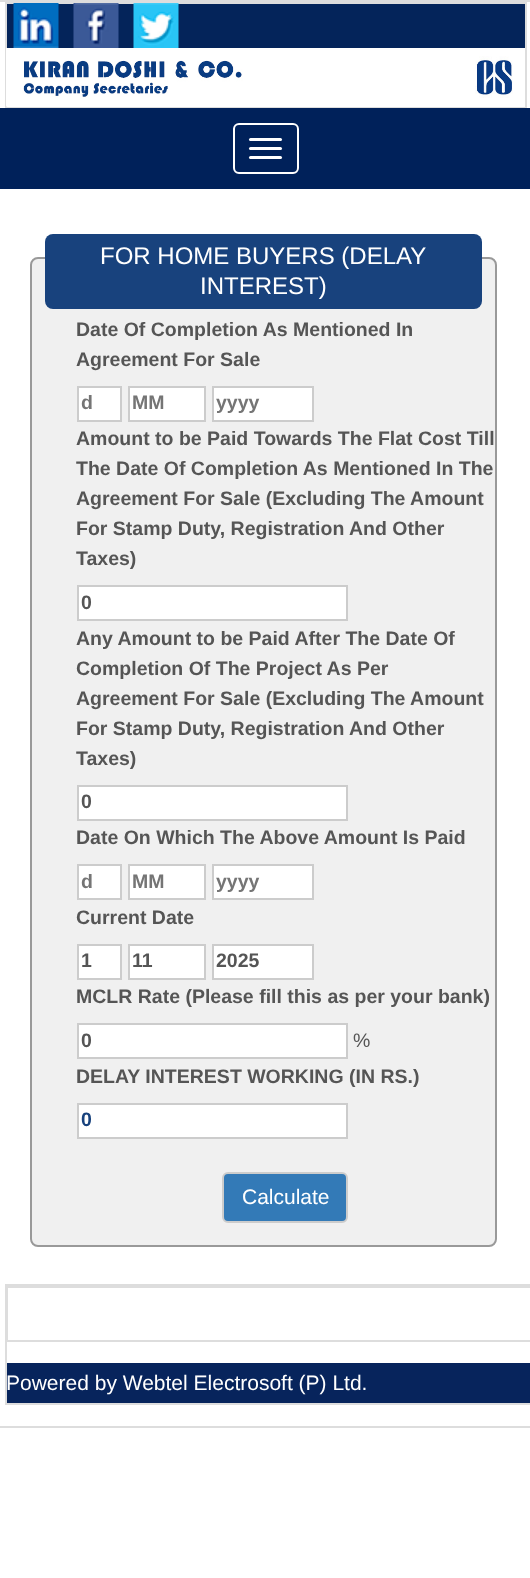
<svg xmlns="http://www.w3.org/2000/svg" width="530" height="1578">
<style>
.a{font:24px Liberation Sans;fill:#fff}
.b{font:bold 19.5px Liberation Sans;fill:#555}
.c{font:bold 19.5px Liberation Sans;fill:#757575}
.d{font:19.5px Liberation Sans;fill:#555}
.e{font:bold 19.5px Liberation Sans;fill:#18427d}
.f{font:21px Liberation Sans;fill:#fff}
</style>
<rect width="100%" height="100%" fill="#fff"/>
<path fill="none" stroke="#ddd" stroke-width="2" d="M-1 1h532v1426H-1z"/>
<path fill="#ddd" d="M5 2h522v2H5z"/>
<path fill="#ddd" d="M525 2h2v106H525z"/>
<path fill="#ddd" d="M5 107h522v1H5z"/>
<path fill="#ddd" d="M5 2h2v106H5z"/>
<path fill="#04245a" d="M7 4h518v44H7z"/>
<image href="1.png" x="13" y="3" width="46" height="45"/>
<image href="2.png" x="73" y="3" width="46" height="45"/>
<image href="3.png" x="133" y="3" width="46" height="45"/>
<image href="4.png" x="6" y="48" width="507" height="59"/>
<path fill="#00215a" d="M0 108h530v81H0z"/>
<rect fill="none" stroke="#fff" stroke-width="2" x="234" y="124" width="64" height="49" rx="5"/>
<rect fill="#fff" x="249" y="138" width="33" height="3" rx="1.5"/>
<rect fill="#fff" x="249" y="147" width="33" height="3" rx="1.5"/>
<rect fill="#fff" x="249" y="156" width="33" height="3" rx="1.5"/>
<rect fill="#f0f0f0" stroke="#999" stroke-width="2" x="31" y="258" width="465" height="988" rx="7"/>
<rect fill="#18427d" x="45" y="234" width="437" height="75" rx="8"/>
<path fill="#fff" stroke="#ccc" stroke-width="2" d="M78 387h43v34H78z"/>
<path fill="#fff" stroke="#ccc" stroke-width="2" d="M129 387h76v34H129z"/>
<path fill="#fff" stroke="#ccc" stroke-width="2" d="M213 387h100v34H213z"/>
<path fill="#fff" stroke="#ccc" stroke-width="2" d="M78 586h269v34H78z"/>
<path fill="#fff" stroke="#ccc" stroke-width="2" d="M78 786h269v34H78z"/>
<path fill="#fff" stroke="#ccc" stroke-width="2" d="M78 865h43v34H78z"/>
<path fill="#fff" stroke="#ccc" stroke-width="2" d="M129 865h76v34H129z"/>
<path fill="#fff" stroke="#ccc" stroke-width="2" d="M213 865h100v34H213z"/>
<path fill="#fff" stroke="#ccc" stroke-width="2" d="M78 945h43v34H78z"/>
<path fill="#fff" stroke="#ccc" stroke-width="2" d="M129 945h76v34H129z"/>
<path fill="#fff" stroke="#ccc" stroke-width="2" d="M213 945h100v34H213z"/>
<path fill="#fff" stroke="#ccc" stroke-width="2" d="M78 1024h269v34H78z"/>
<path fill="#fff" stroke="#ccc" stroke-width="2" d="M78 1104h269v34H78z"/>
<rect fill="#337ab7" stroke="#ccc" stroke-width="2" x="223" y="1173" width="124" height="49" rx="5"/>
<path fill="#ddd" d="M5 1284h525v2H5z"/>
<path fill="#ddd" d="M5 1403h525v2H5z"/>
<path fill="#ddd" d="M5 1284h2v120H5z"/>
<path fill="#ddd" d="M6 1286h524v2H6z"/>
<path fill="#ddd" d="M6 1340h524v2H6z"/>
<path fill="#ddd" d="M7 1286h1v55H7z"/>
<path fill="#07245c" d="M7 1363h523v40H7z"/>
<text class="a" x="100" y="264">FOR HOME BUYERS (DELAY</text>
<text class="a" x="200" y="294">INTEREST)</text>
<text class="b" x="76" y="336">Date Of Completion As Mentioned In</text>
<text class="b" x="76" y="366">Agreement For Sale</text>
<text class="c" x="81" y="409">d</text>
<text class="c" x="132" y="409">MM</text>
<text class="c" x="216" y="409">yyyy</text>
<text class="b" x="76" y="445">Amount to be Paid Towards The Flat Cost Till</text>
<text class="b" x="76" y="475">The Date Of Completion As Mentioned In The</text>
<text class="b" x="76" y="505">Agreement For Sale (Excluding The Amount</text>
<text class="b" x="76" y="535">For Stamp Duty, Registration And Other</text>
<text class="b" x="76" y="565">Taxes)</text>
<text class="b" x="81" y="609">0</text>
<text class="b" x="76" y="645">Any Amount to be Paid After The Date Of</text>
<text class="b" x="76" y="675">Completion Of The Project As Per</text>
<text class="b" x="76" y="705">Agreement For Sale (Excluding The Amount</text>
<text class="b" x="76" y="735">For Stamp Duty, Registration And Other</text>
<text class="b" x="76" y="765">Taxes)</text>
<text class="b" x="81" y="808">0</text>
<text class="b" x="76" y="844">Date On Which The Above Amount Is Paid</text>
<text class="c" x="81" y="888">d</text>
<text class="c" x="132" y="888">MM</text>
<text class="c" x="216" y="888">yyyy</text>
<text class="b" x="76" y="924">Current Date</text>
<text class="b" x="81" y="967">1</text>
<text class="b" x="132" y="967">11</text>
<text class="b" x="216" y="967">2025</text>
<text class="b" x="76" y="1003">MCLR Rate (Please fill this as per your bank)</text>
<text class="b" x="81" y="1047">0</text>
<text class="d" x="353" y="1047">%</text>
<text class="b" x="76" y="1083">DELAY INTEREST WORKING (IN RS.)</text>
<text class="e" x="81" y="1126">0</text>
<text class="f" x="242" y="1204">Calculate</text>
<text class="f" x="6" y="1390">Powered by Webtel Electrosoft (P) Ltd.</text>
</svg>
